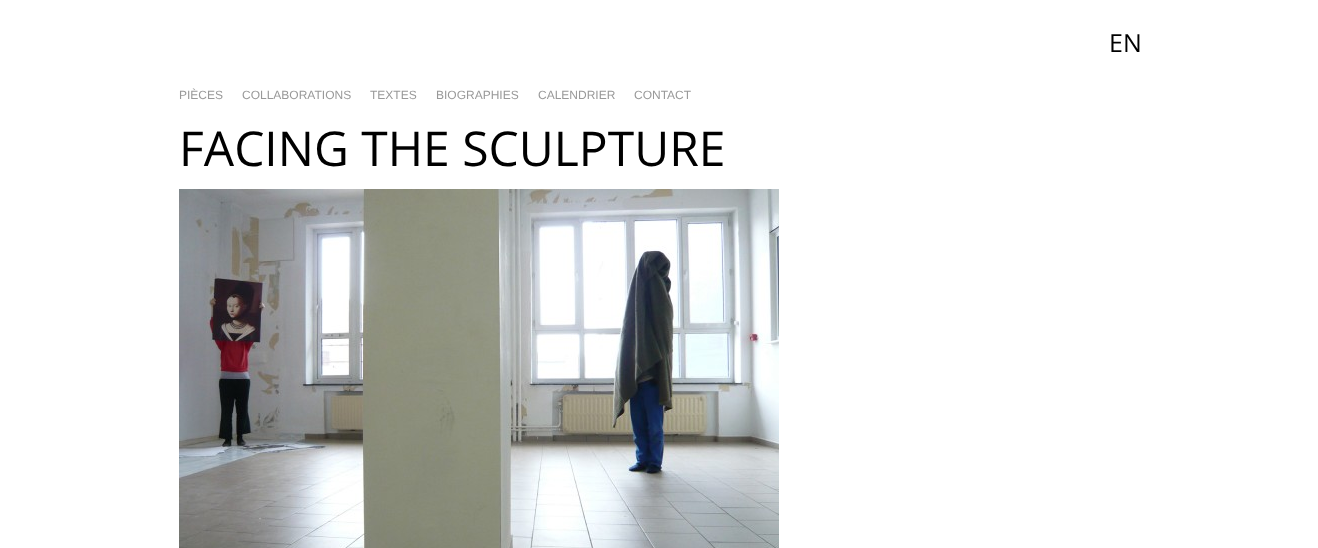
<svg xmlns="http://www.w3.org/2000/svg" width="1318" height="548">
<style>
.a{font:25px Open Sans;fill:#000}
.b{font:12px Liberation Sans;fill:#999}
.c{font:48px Open Sans;fill:#000}
</style>
<rect width="100%" height="100%" fill="#fff"/>
<image href="1.png" x="179" y="189" width="600" height="359"/>
<text class="a" x="1109" y="52">EN</text>
<text class="b" x="179" y="99">PIÈCES</text>
<text class="b" x="242" y="99">COLLABORATIONS</text>
<text class="b" x="370" y="99">TEXTES</text>
<text class="b" x="436" y="99">BIOGRAPHIES</text>
<text class="b" x="538" y="99">CALENDRIER</text>
<text class="b" x="634" y="99">CONTACT</text>
<text class="c" x="179" y="166">FACING THE SCULPTURE</text>
</svg>
